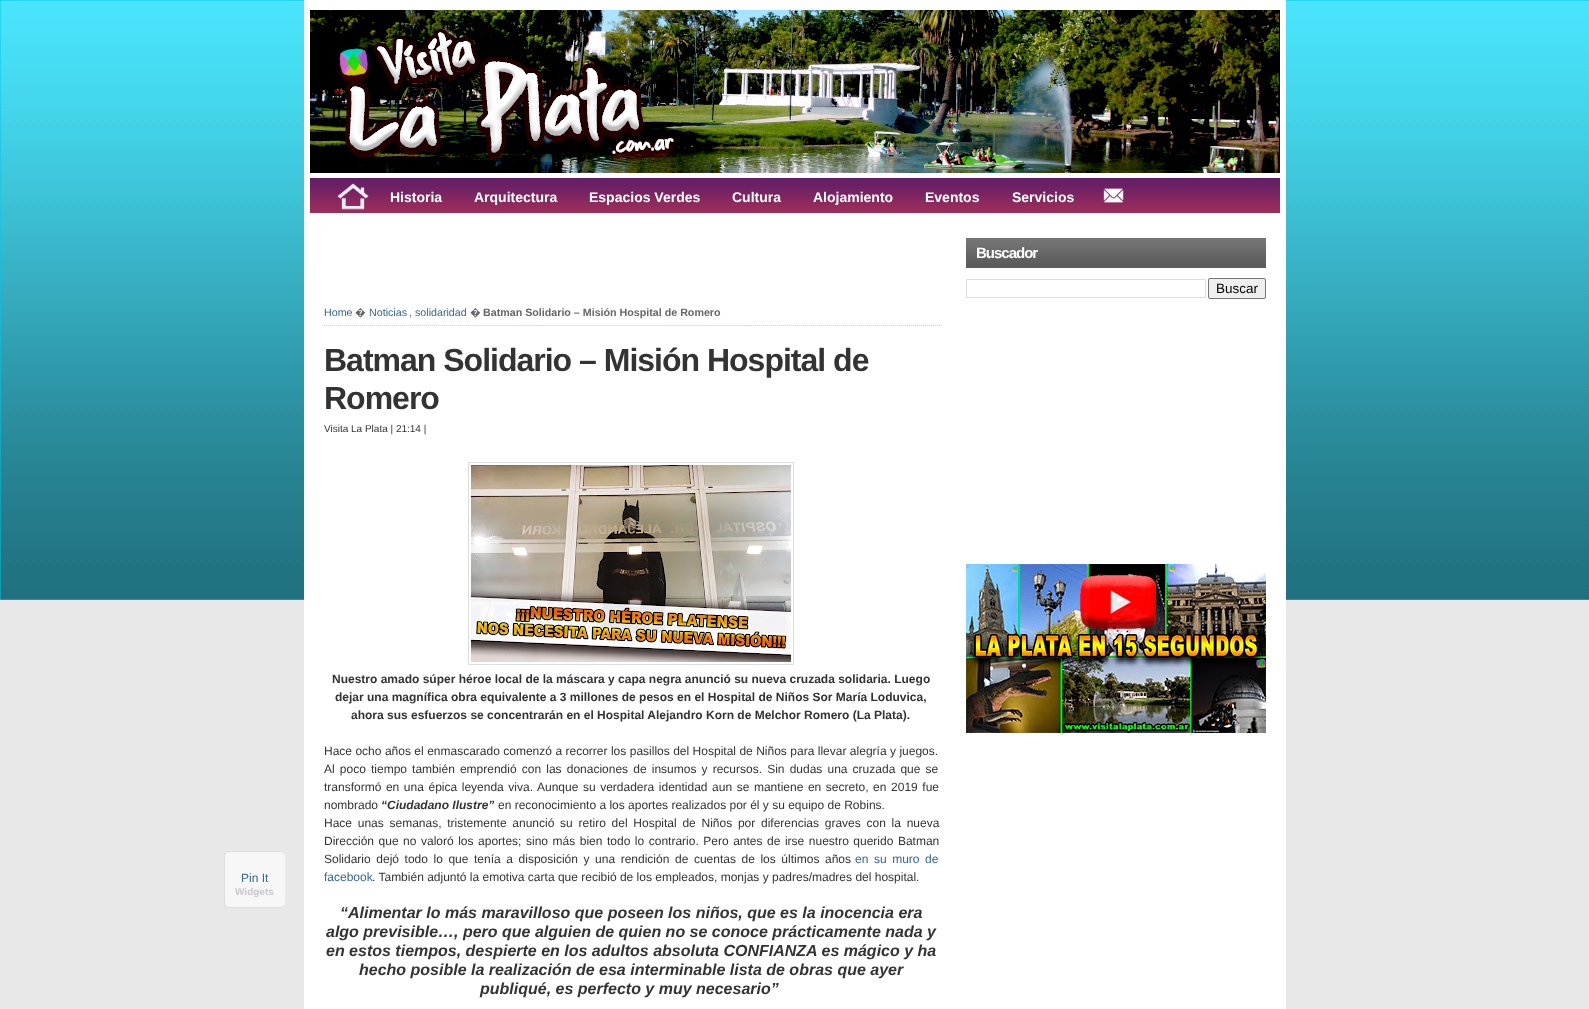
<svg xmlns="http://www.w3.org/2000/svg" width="1589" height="1009">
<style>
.a{font:bold 14px Liberation Sans;fill:#fff}
.b{font:bold 15px Liberation Sans;letter-spacing:-1px;fill:#fff}
.c{font:13.5px Liberation Sans;fill:#000}
.d{font:10.7px Liberation Sans;fill:#369}
.e{font:10.7px Noto Sans;fill:#666}
.f{font:10.7px Liberation Sans;fill:#666}
.g{font:bold 10.7px Liberation Sans;fill:#666}
.h{font:12px Liberation Sans;fill:#369}
.i{font:bold 10px Liberation Sans;fill:#cac8c8}
.j{font:bold 32px Liberation Sans;letter-spacing:-1px;fill:#333}
.k{font:10px Liberation Sans;fill:#333}
.l{font:bold 12px Liberation Sans;fill:#333}
.m{font:12px Liberation Sans;fill:#333}
.n{font:italic bold 12px Liberation Sans;fill:#333}
.o{font:italic bold 16px Liberation Sans;fill:#333}
</style>
<rect width="100%" height="100%" fill="#e8e8e8"/>
<image href="1.png" x="0" y="0" width="1589" height="600"/>
<path fill="#fff" d="M304 0h982v1009H304z"/>
<image href="2.png" x="310" y="10" width="970" height="163"/>
<image href="3.png" x="310" y="178" width="970" height="35"/>
<image href="4.png" x="337" y="183" width="32" height="27"/>
<image href="5.png" x="1103" y="188" width="21" height="15"/>
<image href="6.png" x="966" y="238" width="300" height="30"/>
<path fill="none" stroke="#ddd" d="M966.5 279.5h239v18H966.5z"/>
<rect fill="#efefef" stroke="#767676" x="1208.5" y="278.5" width="57" height="20" rx="1.5"/>
<image href="7.png" x="966" y="564" width="300" height="169"/>
<image href="8.png" x="324" y="325" width="616" height="1"/>
<rect fill="#f7f7f7" x="224" y="851" width="61" height="57" rx="5"/>
<path fill="#ddd" fill-rule="evenodd" d="M229 851h51c3 0 5 2 5 5v47c0 3-2 5-5 5h-51c-3 0-5-2-5-5v-47c0-3 2-5 5-5zm0 1h51c3 0 5 2 5 4v47c0 2-2 4-5 4h-51c-2 0-4-2-4-4v-47c0-2 2-4 4-4z"/>
<path fill="none" stroke="#ddd" d="M468.5 462.5h325v202H468.5z"/>
<image href="9.png" x="471" y="465" width="320" height="197"/>
<text class="a" x="390" y="202">Historia</text>
<text class="a" x="474" y="202">Arquitectura</text>
<text class="a" x="589" y="202">Espacios Verdes</text>
<text class="a" x="732" y="202">Cultura</text>
<text class="a" x="813" y="202">Alojamiento</text>
<text class="a" x="925" y="202">Eventos</text>
<text class="a" x="1012" y="202">Servicios</text>
<text class="b" x="976" y="258">Buscador</text>
<text class="c" x="1216" y="293">Buscar</text>
<text class="d" x="324" y="316">Home</text>
<text class="e" x="355" y="316">�</text>
<text class="d" x="369" y="316">Noticias</text>
<text class="f" x="409" y="316">,</text>
<text class="d" x="415" y="316">solidaridad</text>
<text class="e" x="470" y="316">�</text>
<text class="g" x="483" y="316">Batman Solidario – Misión Hospital de Romero</text>
<text class="h" x="241" y="882">Pin It</text>
<text class="i" x="235" y="895">Widgets</text>
<text class="j" x="324" y="371">Batman Solidario – Misión Hospital de</text>
<text class="j" x="324" y="409">Romero</text>
<text class="k" x="324" y="432">Visita La Plata | 21:14 |</text>
<text class="l" x="332" y="683">Nuestro amado súper héroe local de la máscara y capa negra anunció su nueva cruzada solidaria. Luego</text>
<text class="l" x="335" y="701">dejar una magnífica obra equivalente a 3 millones de pesos en el Hospital de Niños Sor María Loduvica,</text>
<text class="l" x="351" y="719">ahora sus esfuerzos se concentrarán en el Hospital Alejandro Korn de Melchor Romero (La Plata).</text>
<text class="m" x="324" y="755" word-spacing="0.1">Hace ocho años el enmascarado comenzó a recorrer los pasillos del Hospital de Niños para llevar alegría y juegos.</text>
<text class="m" x="324" y="773" word-spacing="1.8">Al poco tiempo también emprendió con las donaciones de insumos y recursos. Sin dudas una cruzada que se</text>
<text class="m" x="324" y="791" word-spacing="1.25">transformó en una épica leyenda viva. Aunque su verdadera identidad aun se mantiene en secreto, en 2019 fue</text>
<text class="m" x="324" y="809">nombrado</text>
<text class="n" x="381" y="809">“Ciudadano Ilustre”</text>
<text class="m" x="498" y="809">en reconocimiento a los aportes realizados por él y su equipo de Robins.</text>
<text class="m" x="324" y="827" word-spacing="2.4">Hace unas semanas, tristemente anunció su retiro del Hospital de Niños por diferencias graves con la nueva</text>
<text class="m" x="324" y="845" word-spacing="1.2">Dirección que no valoró los aportes; sino más bien todo lo contrario. Pero antes de irse nuestro querido Batman</text>
<text class="m" x="324" y="863" word-spacing="2.25">Solidario dejó todo lo que tenía a disposición y una rendición de cuentas de los últimos años</text>
<text class="h" x="855" y="863" word-spacing="2.25">en su muro de</text>
<text class="h" x="324" y="881">facebook</text>
<text class="m" x="372" y="881">. También adjuntó la emotiva carta que recibió de los empleados, monjas y padres/madres del hospital.</text>
<text class="o" x="340" y="918">“Alimentar lo más maravilloso que poseen los niños, que es la inocencia era</text>
<text class="o" x="326" y="937">algo previsible…, pero que alguien de quien no se conoce prácticamente nada y</text>
<text class="o" x="326" y="956">en estos tiempos, despierte en los adultos absoluta CONFIANZA es mágico y ha</text>
<text class="o" x="359" y="975">hecho posible la realización de esa interminable lista de obras que ayer</text>
<text class="o" x="480" y="994">publiqué, es perfecto y muy necesario”</text>
</svg>
